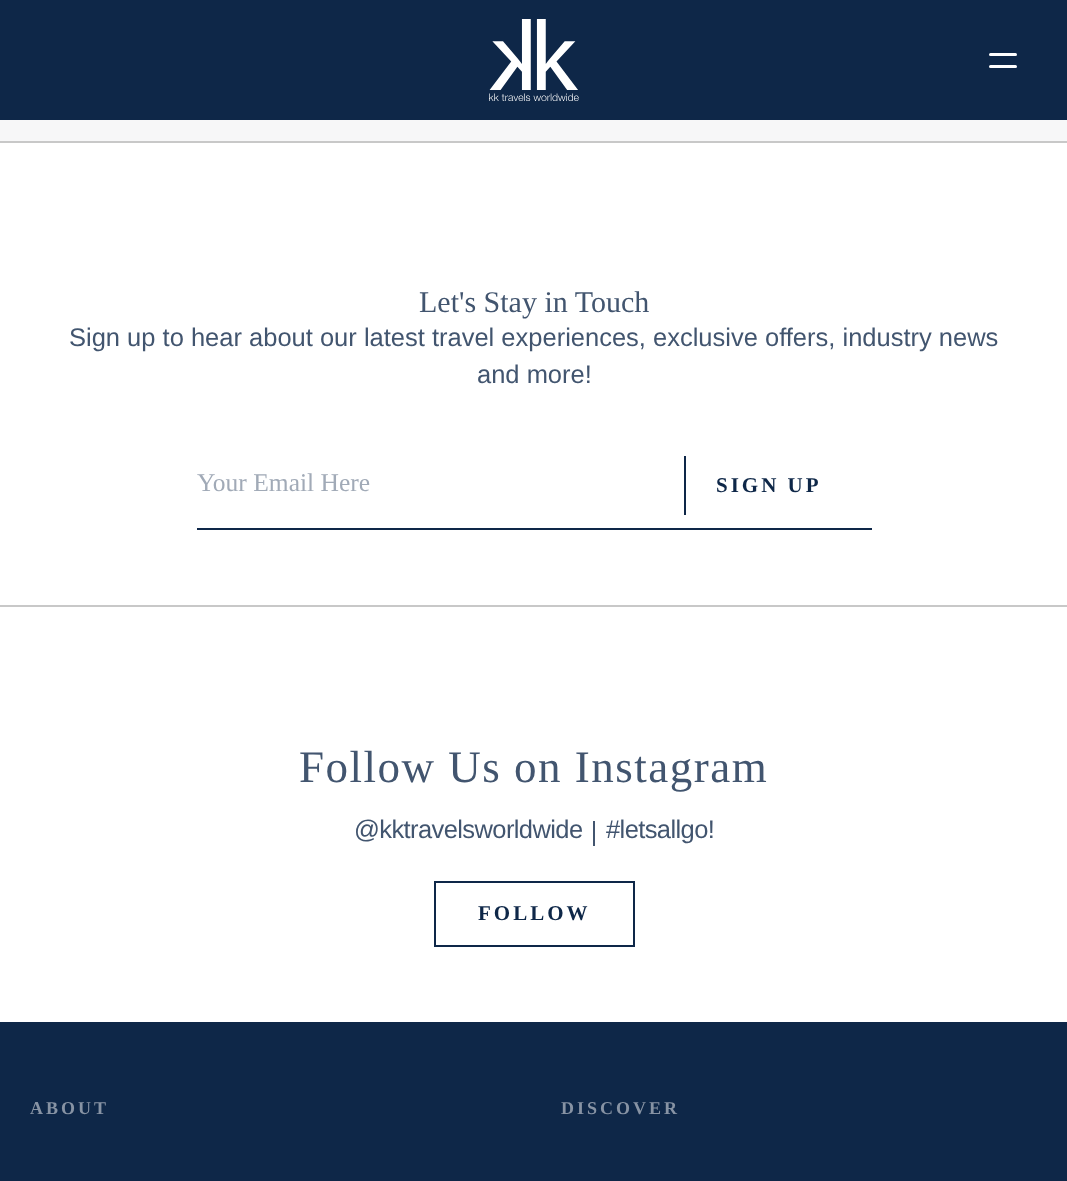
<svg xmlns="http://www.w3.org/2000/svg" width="1067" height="1181">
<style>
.a{font:30px Liberation Serif;fill:#42556f}
.b{font:25.5px Liberation Sans;fill:#42556f}
.c{font:25.5px Liberation Serif;fill:#a1aab7}
.d{font:bold 21px Liberation Serif;letter-spacing:3px;fill:#0e2748}
.e{font:45px Liberation Serif;letter-spacing:1.5px;fill:#42556f}
.f{font:25.5px Liberation Sans;letter-spacing:-0.6px;fill:#42556f}
.g{font:bold 18px Liberation Serif;letter-spacing:3px;fill:#8793a4}
</style>
<rect width="100%" height="100%" fill="#f7f7f8"/>
<path fill="#0e2748" d="M0 0h1067v120H0z"/>
<image href="1.png" x="489" y="19" width="90" height="82"/>
<rect fill="#fff" x="989" y="53" width="28" height="3" rx="1.5"/>
<rect fill="#fff" x="989" y="65" width="28" height="3" rx="1.5"/>
<path fill="#fff" d="M0 143h1067v879H0z"/>
<path fill="#c8c8c8" d="M0 141h1067v2H0z"/>
<path fill="#0e2748" d="M197 528h675v2H197z"/>
<path fill="#0e2748" d="M684 456h2v59H684z"/>
<path fill="#c8c8c8" d="M0 605h1067v2H0z"/>
<path fill="#42556f" d="M593 821h2v25H593z"/>
<path fill="none" stroke="#0e2748" stroke-width="2" d="M435 882h199v64H435z"/>
<path fill="#0e2748" d="M0 1022h1067v159H0z"/>
<text class="a" x="419" y="312">Let's Stay in Touch</text>
<text class="b" x="69" y="346">Sign up to hear about our latest travel experiences, exclusive offers, industry news</text>
<text class="b" x="477" y="383">and more!</text>
<text class="c" x="197" y="491">Your Email Here</text>
<text class="d" x="716" y="492">SIGN UP</text>
<text class="e" x="299" y="782">Follow Us on Instagram</text>
<text class="f" x="354" y="838">@kktravelsworldwide</text>
<text class="f" x="606" y="838">#letsallgo!</text>
<text class="d" x="478" y="920">FOLLOW</text>
<text class="g" x="30" y="1114">ABOUT</text>
<text class="g" x="561" y="1114">DISCOVER</text>
</svg>
